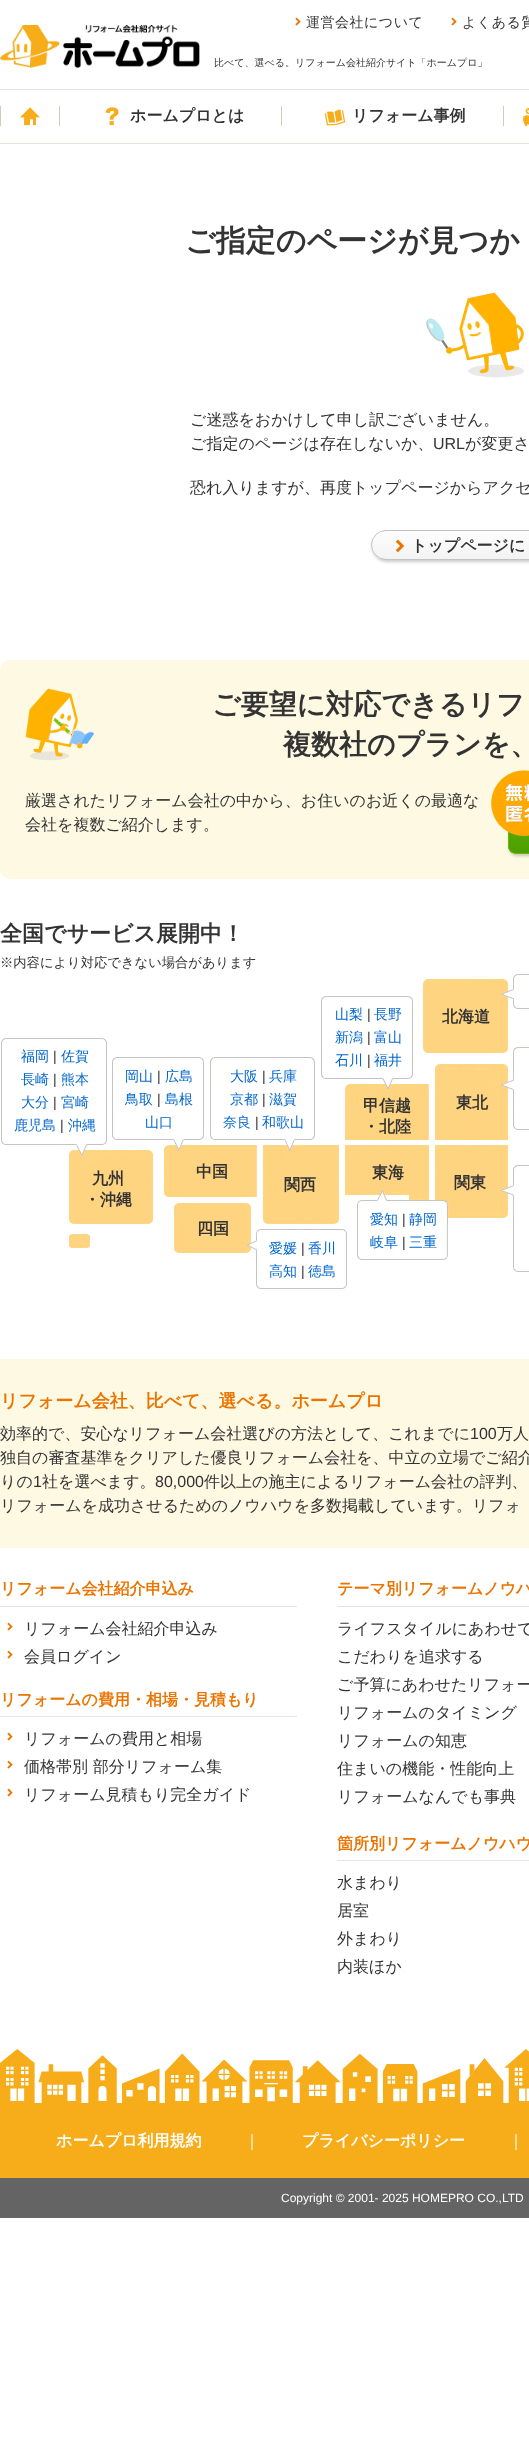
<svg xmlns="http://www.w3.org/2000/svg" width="529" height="2464">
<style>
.a{font:500 14px WenQuanYi Zen Hei;letter-spacing:0.5px;fill:#333}
.b{font:500 10px WenQuanYi Zen Hei;fill:#333}
.c{font:bold 16px WenQuanYi Zen Hei;fill:#333}
.d{font:bold 30px WenQuanYi Zen Hei;fill:#333}
.e{font:500 16px WenQuanYi Zen Hei;fill:#333}
.f{font:16px Liberation Sans;fill:#333}
.g{font:bold 28px WenQuanYi Zen Hei;fill:#333}
.h{font:bold 22px WenQuanYi Zen Hei;fill:#333}
.i{font:500 13.3px WenQuanYi Zen Hei;fill:#333}
.j{font:500 14px WenQuanYi Zen Hei;fill:#06c}
.k{font:14px Liberation Sans;fill:#333}
.l{font:bold 18px WenQuanYi Zen Hei;fill:#eb7401}
.m{font:bold 16px WenQuanYi Zen Hei;fill:#eb7401}
.n{font:bold 16px WenQuanYi Zen Hei;fill:#fff}
.o{font:500 16px WenQuanYi Zen Hei;fill:#fff}
.p{font:12px Liberation Sans;fill:#fff}
</style>
<defs>
<clipPath id="clip1"><rect x="371" y="530" width="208" height="30" rx="15"/></clipPath>
<linearGradient id="g1" gradientUnits="userSpaceOnUse" x1="475" y1="531" x2="475" y2="559"><stop offset="0" stop-color="#fefefe"/><stop offset="1" stop-color="#f3f3f3"/></linearGradient>
<clipPath id="clip2"><rect x="508" y="789" width="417" height="65" rx="8"/></clipPath>
<linearGradient id="g2" gradientUnits="userSpaceOnUse" x1="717" y1="790" x2="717" y2="853"><stop offset="0" stop-color="#68b703"/><stop offset="1" stop-color="#4b9f02"/></linearGradient>
</defs>
<rect width="100%" height="100%" fill="#fff"/>
<path fill="#e8e4dc" d="M0 89h529v1H0z"/>
<image href="1.png" x="0" y="25" width="200" height="43"/>
<image href="2.png" x="295" y="17" width="6" height="9"/>
<image href="2.png" x="451" y="17" width="6" height="9"/>
<path fill="#e8e4dc" d="M0 143h529v1H0z"/>
<path fill="#d2caba" d="M0 106h1v20H0z"/>
<image href="3.png" x="20" y="107" width="20" height="19"/>
<path fill="#d2caba" d="M59 106h1v20H59z"/>
<image href="4.png" x="105" y="107" width="14" height="19"/>
<path fill="#d2caba" d="M281 106h1v20H281z"/>
<image href="5.png" x="324" y="109" width="22" height="17"/>
<path fill="#d2caba" d="M503 106h1v20H503z"/>
<image href="6.png" x="523" y="108" width="6" height="18"/>
<image href="7.png" x="426" y="292" width="98" height="86"/>
<rect fill="#00000033" filter="blur(1.5px)" x="372" y="532" width="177" height="30" rx="15"/>
<g clip-path="url(#clip1)">
<path fill="url(#g1)" d="M371 531h158v28H371z"/>
</g>
<rect fill="none" stroke="#c4c3c0" x="371.5" y="530.5" width="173" height="29" rx="14.5"/>
<image href="8.png" x="395" y="539" width="10" height="14"/>
<rect fill="#fef9e3" y="660" width="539" height="219" rx="10"/>
<image href="9.png" x="25" y="688" width="69" height="73"/>
<rect fill="#00000033" filter="blur(1.5px)" x="509" y="791" width="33" height="65" rx="8"/>
<g clip-path="url(#clip2)">
<path fill="url(#g2)" d="M508 832h21v21H508z"/>
</g>
<rect fill="none" stroke="#69b803" x="508.5" y="789.5" width="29" height="64" rx="7.5"/>
<image href="10.png" x="491" y="770" width="38" height="66"/>
<image href="11.png" x="1" y="974" width="528" height="315"/>
<path fill="#fef9e3" d="M0 1359h529v189H0z"/>
<image href="12.png" x="0" y="2049" width="529" height="54"/>
<path fill="#e8e4dc" d="M0 1606h297v1H0z"/>
<image href="2.png" x="7" y="1622" width="6" height="9"/>
<image href="2.png" x="7" y="1650" width="6" height="9"/>
<path fill="#e8e4dc" d="M0 1716h297v1H0z"/>
<image href="2.png" x="7" y="1732" width="6" height="9"/>
<image href="2.png" x="7" y="1760" width="6" height="9"/>
<image href="2.png" x="7" y="1788" width="6" height="9"/>
<path fill="#e8e4dc" d="M337 1606h192v1H337z"/>
<path fill="#e8e4dc" d="M337 1860h192v1H337z"/>
<path fill="#f7ac19" d="M0 2103h529v75H0z"/>
<path fill="#646464" d="M0 2178h529v40H0z"/>
<text class="a" x="306" y="27">運営会社について</text>
<text class="a" x="462" y="27">よくある質</text>
<text class="b" x="214" y="66">比べて、選べる。リフォーム会社紹介サイト「ホームプロ」</text>
<text class="c" x="130" y="121">ホームプロとは</text>
<text class="c" x="352" y="121">リフォーム事例</text>
<text class="d" x="185" y="251">ご指定のページが見つか</text>
<text class="e" x="190" y="425">ご迷惑をおかけして申し訳ございません。</text>
<text class="e" x="190" y="449">ご指定のページは存在しないか、</text>
<text class="f" x="433" y="449">URL</text>
<text class="e" x="465" y="449">が変更さ</text>
<text class="e" x="190" y="493">恐れ入りますが、再度トップページからアクセ</text>
<text class="c" x="411" y="551">トップページに</text>
<text class="g" x="212" y="714">ご要望に対応できるリフ</text>
<text class="g" x="283" y="754">複数社のプランを、</text>
<text class="e" x="25" y="806">厳選されたリフォーム会社の中から、お住いのお近くの最適な</text>
<text class="e" x="25" y="830">会社を複数ご紹介します。</text>
<text class="h" x="0" y="941">全国でサービス展開中！</text>
<text class="i" x="0" y="967">※内容により対応できない場合があります</text>
<text class="j" x="335" y="1019">山梨</text>
<text class="k" x="367" y="1019">|</text>
<text class="j" x="374" y="1019">長野</text>
<text class="j" x="335" y="1042">新潟</text>
<text class="k" x="367" y="1042">|</text>
<text class="j" x="374" y="1042">富山</text>
<text class="j" x="335" y="1065">石川</text>
<text class="k" x="367" y="1065">|</text>
<text class="j" x="374" y="1065">福井</text>
<text class="c" x="442" y="1022">北海道</text>
<text class="j" x="21" y="1061">福岡</text>
<text class="k" x="53" y="1061">|</text>
<text class="j" x="61" y="1061">佐賀</text>
<text class="j" x="21" y="1084">長崎</text>
<text class="k" x="53" y="1084">|</text>
<text class="j" x="61" y="1084">熊本</text>
<text class="j" x="21" y="1107">大分</text>
<text class="k" x="53" y="1107">|</text>
<text class="j" x="61" y="1107">宮崎</text>
<text class="j" x="14" y="1130">鹿児島</text>
<text class="k" x="60" y="1130">|</text>
<text class="j" x="68" y="1130">沖縄</text>
<text class="j" x="125" y="1081">岡山</text>
<text class="k" x="157" y="1081">|</text>
<text class="j" x="165" y="1081">広島</text>
<text class="j" x="125" y="1104">鳥取</text>
<text class="k" x="157" y="1104">|</text>
<text class="j" x="165" y="1104">島根</text>
<text class="j" x="145" y="1127">山口</text>
<text class="j" x="230" y="1081">大阪</text>
<text class="k" x="262" y="1081">|</text>
<text class="j" x="269" y="1081">兵庫</text>
<text class="j" x="230" y="1104">京都</text>
<text class="k" x="262" y="1104">|</text>
<text class="j" x="269" y="1104">滋賀</text>
<text class="j" x="223" y="1127">奈良</text>
<text class="k" x="255" y="1127">|</text>
<text class="j" x="262" y="1127">和歌山</text>
<text class="c" x="363" y="1111">甲信越</text>
<text class="c" x="363" y="1132">・北陸</text>
<text class="c" x="456" y="1108">東北</text>
<text class="c" x="92" y="1184">九州</text>
<text class="c" x="84" y="1205">・沖縄</text>
<text class="c" x="196" y="1177">中国</text>
<text class="c" x="284" y="1190">関西</text>
<text class="c" x="372" y="1178">東海</text>
<text class="c" x="454" y="1188">関東</text>
<text class="c" x="197" y="1234">四国</text>
<text class="j" x="370" y="1224">愛知</text>
<text class="k" x="402" y="1224">|</text>
<text class="j" x="409" y="1224">静岡</text>
<text class="j" x="370" y="1247">岐阜</text>
<text class="k" x="402" y="1247">|</text>
<text class="j" x="409" y="1247">三重</text>
<text class="j" x="269" y="1253">愛媛</text>
<text class="k" x="301" y="1253">|</text>
<text class="j" x="308" y="1253">香川</text>
<text class="j" x="269" y="1276">高知</text>
<text class="k" x="301" y="1276">|</text>
<text class="j" x="308" y="1276">徳島</text>
<text class="l" x="0" y="1407">リフォーム会社、比べて、選べる。ホームプロ</text>
<text class="e" x="0" y="1439">効率的で、安心なリフォーム会社選びの方法として、これまでに</text>
<text class="f" x="470" y="1439">100</text>
<text class="e" x="497" y="1439">万人</text>
<text class="e" x="0" y="1463">独自の審査基準をクリアした優良リフォーム会社を、中立の立場でご紹介</text>
<text class="e" x="0" y="1487">りの</text>
<text class="f" x="33" y="1487">1</text>
<text class="e" x="42" y="1487">社を選べます。</text>
<text class="f" x="155" y="1487">80,000</text>
<text class="e" x="204" y="1487">件以上の施主によるリフォーム会社の評判、</text>
<text class="e" x="0" y="1511">リフォームを成功させるためのノウハウを多数掲載しています。リフォ</text>
<text class="m" x="0" y="1594">リフォーム会社紹介申込み</text>
<text class="e" x="24" y="1634">リフォーム会社紹介申込み</text>
<text class="e" x="24" y="1662">会員ログイン</text>
<text class="m" x="0" y="1705">リフォームの費用・相場・見積もり</text>
<text class="e" x="24" y="1744">リフォームの費用と相場</text>
<text class="e" x="24" y="1772">価格帯別 部分リフォーム集</text>
<text class="e" x="24" y="1800">リフォーム見積もり完全ガイド</text>
<text class="m" x="337" y="1594">テーマ別リフォームノウハ</text>
<text class="e" x="337" y="1634">ライフスタイルにあわせて</text>
<text class="e" x="337" y="1662">こだわりを追求する</text>
<text class="e" x="337" y="1690">ご予算にあわせたリフォー</text>
<text class="e" x="337" y="1718">リフォームのタイミング</text>
<text class="e" x="337" y="1746">リフォームの知恵</text>
<text class="e" x="337" y="1774">住まいの機能・性能向上</text>
<text class="e" x="337" y="1802">リフォームなんでも事典</text>
<text class="m" x="337" y="1849">箇所別リフォームノウハウ</text>
<text class="e" x="337" y="1888">水まわり</text>
<text class="e" x="337" y="1916">居室</text>
<text class="e" x="337" y="1944">外まわり</text>
<text class="e" x="337" y="1972">内装ほか</text>
<text class="n" x="56" y="2146">ホームプロ利用規約</text>
<text class="o" x="244" y="2146">｜</text>
<text class="n" x="302" y="2146">プライバシーポリシー</text>
<text class="o" x="508" y="2146">｜</text>
<text class="p" x="281" y="2202">Copyright © 2001- 2025 HOMEPRO CO.,LTD</text>
</svg>
